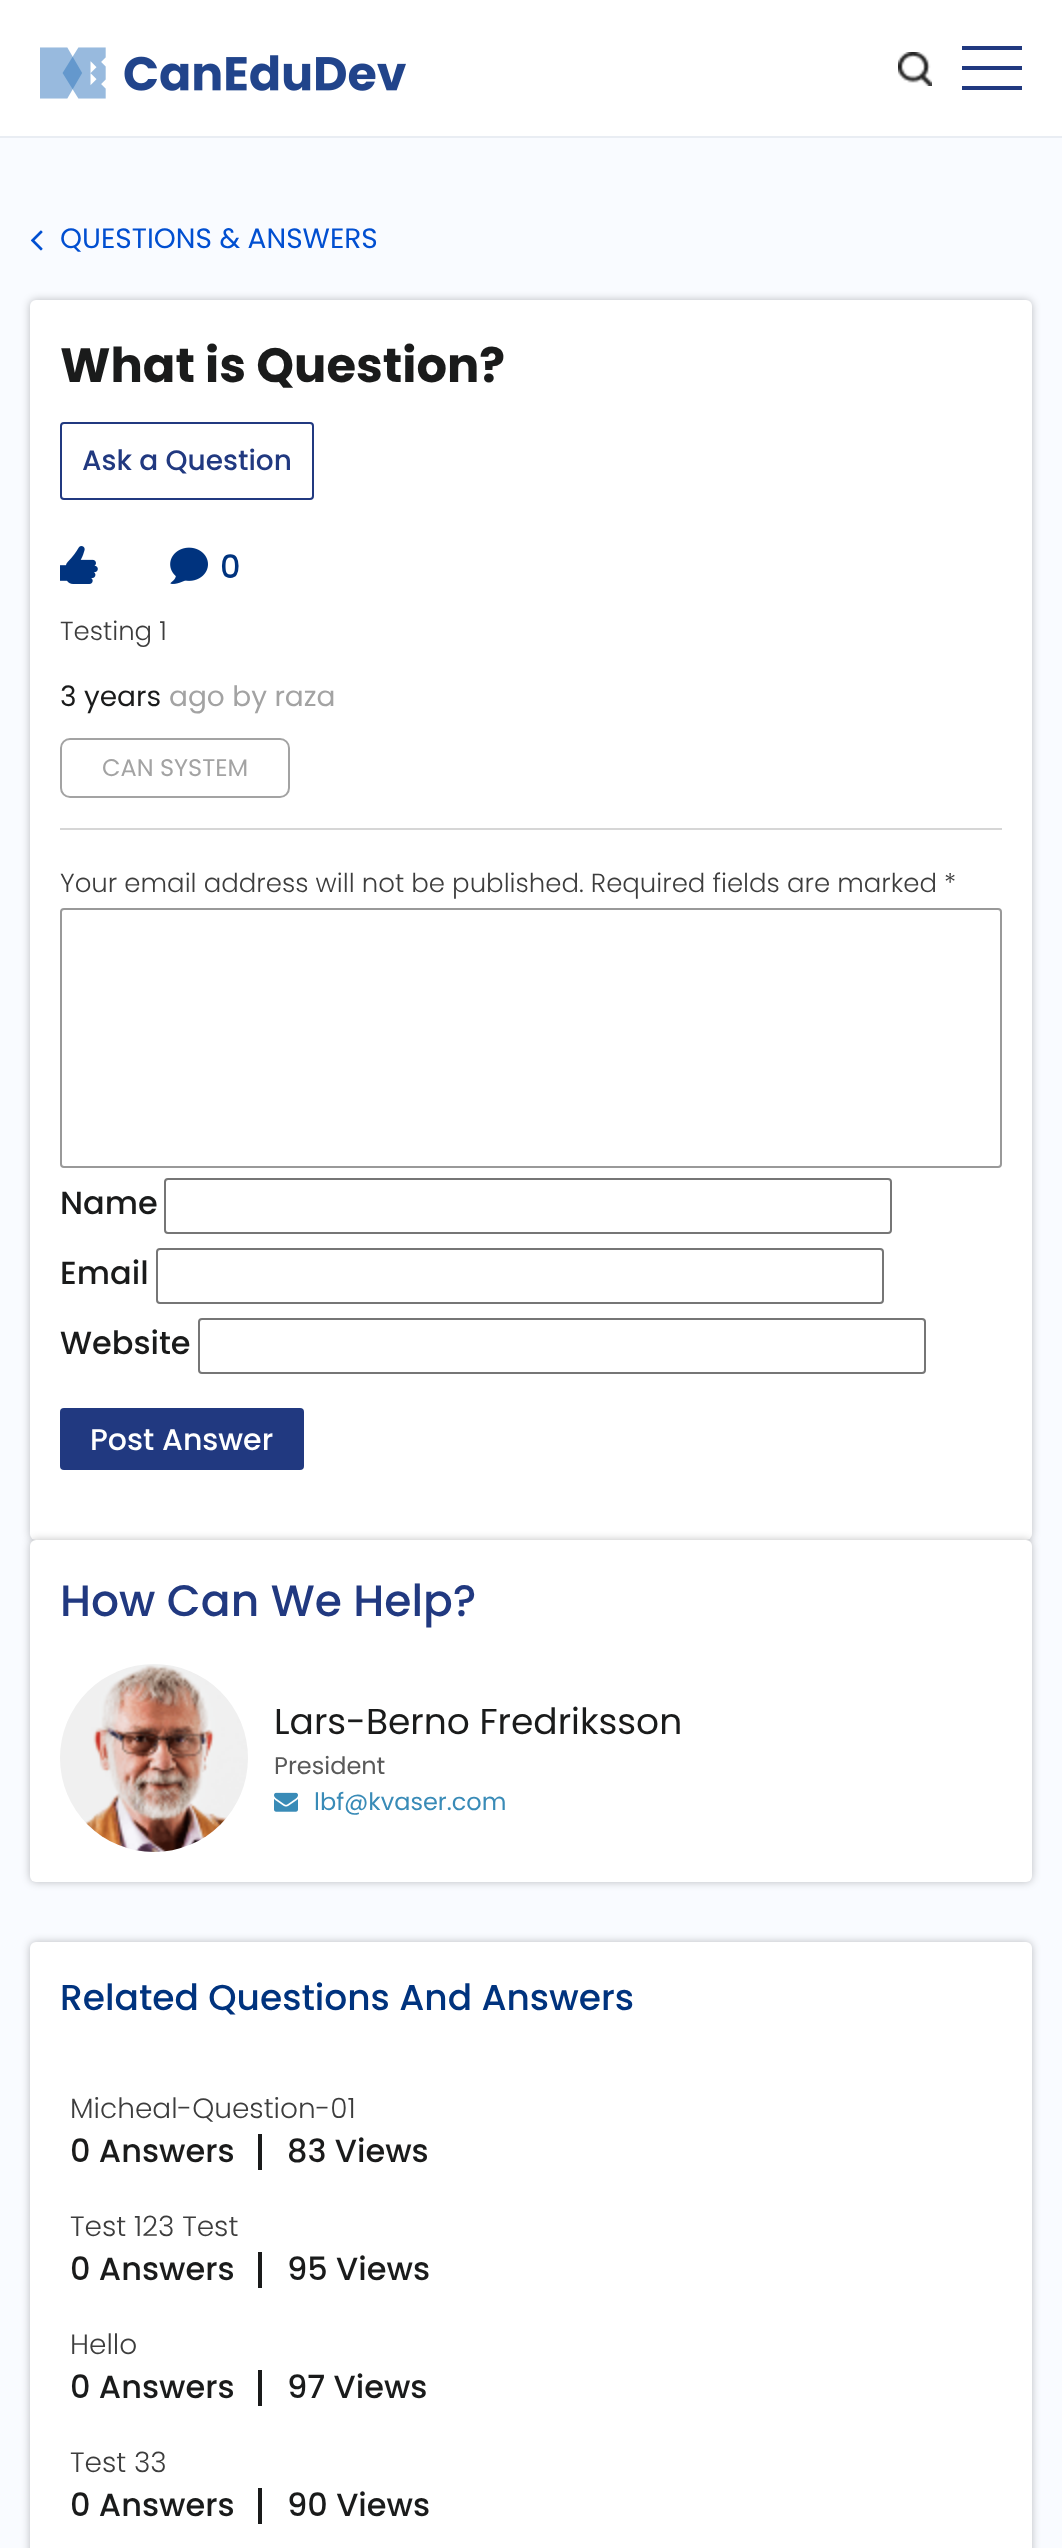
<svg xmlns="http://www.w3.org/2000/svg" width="1062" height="2548">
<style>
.a{font:28px Poppins;fill:#014fd1}
.b{font:bold 48px Poppins;fill:#1a1b1b}
.c{font:500 28px Poppins;fill:#213980}
.d{font:500 32px Poppins;fill:#00337e}
.e{font:300 26px Poppins;fill:#3d3d3d}
.f{font:28px Poppins;fill:#1a1b1b}
.g{font:28px Poppins;fill:#a3a3a3}
.h{font:24px Poppins;fill:#a3a3a3}
.i{font:500 32px Poppins;fill:#1a1b1b}
.j{font:500 30px Poppins;fill:#fff}
.k{font:500 44px Poppins;fill:#213980}
.l{font:36px Poppins;fill:#1a1b1b}
.m{font:24px Poppins;fill:#595959}
.n{font:24px Poppins;fill:#398bb7}
.o{font:500 36px Poppins;fill:#00337e}
.p{font:300 28px Poppins;fill:#3d3d3d}
</style>
<rect width="100%" height="100%" fill="#f9fbff"/>
<path fill="#fff" d="M0 0h1062v136H0z"/>
<path fill="#e9edf3" d="M0 136h1062v2H0z"/>
<image href="1.png" x="40" y="47" width="366" height="52"/>
<image href="2.png" x="898" y="52" width="34" height="34"/>
<path fill="#213980" d="M962 46h60v4H962z"/>
<path fill="#213980" d="M962 66h60v4H962z"/>
<path fill="#213980" d="M962 86h60v4H962z"/>
<image href="3.png" x="30" y="230" width="13" height="21"/>
<rect fill="#00000040" filter="blur(4px)" x="30" y="300" width="1002" height="1240" rx="6"/>
<rect fill="#fff" x="30" y="300" width="1002" height="1240" rx="6"/>
<rect fill="none" stroke="#213980" stroke-width="2" x="61" y="423" width="252" height="76" rx="3"/>
<image href="4.png" x="60" y="546" width="38" height="38"/>
<image href="5.png" x="170" y="547" width="38" height="37"/>
<rect fill="none" stroke="#a3a3a3" stroke-width="2" x="61" y="739" width="228" height="58" rx="9"/>
<path fill="#d6d6d6" d="M60 828h942v2H60z"/>
<rect fill="none" stroke="#999" stroke-width="2" x="61" y="909" width="940" height="258" rx="3"/>
<rect fill="none" stroke="#767676" stroke-width="2" x="165" y="1179" width="726" height="54" rx="3"/>
<rect fill="none" stroke="#767676" stroke-width="2" x="157" y="1249" width="726" height="54" rx="3"/>
<rect fill="none" stroke="#767676" stroke-width="2" x="199" y="1319" width="726" height="54" rx="3"/>
<rect fill="#213980" x="60" y="1408" width="244" height="62" rx="4"/>
<rect fill="#00000040" filter="blur(4px)" x="30" y="1540" width="1002" height="342" rx="6"/>
<rect fill="#fff" x="30" y="1540" width="1002" height="342" rx="6"/>
<image href="6.png" x="60" y="1664" width="188" height="188"/>
<image href="7.png" x="274" y="1792" width="24" height="20"/>
<rect fill="#00000040" filter="blur(4px)" x="30" y="1942" width="1002" height="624" rx="6"/>
<rect fill="#fff" x="30" y="1942" width="1002" height="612" rx="6"/>
<path fill="#1a1b1b" d="M258 2134h4v36H258z"/>
<path fill="#1a1b1b" d="M258 2252h4v36H258z"/>
<path fill="#1a1b1b" d="M258 2370h4v36H258z"/>
<path fill="#1a1b1b" d="M258 2488h4v36H258z"/>
<text class="a" x="60" y="248">QUESTIONS &amp; ANSWERS</text>
<text class="b" x="60" y="382">What is Question?</text>
<text class="c" x="82" y="470">Ask a Question</text>
<text class="d" x="220" y="578">0</text>
<text class="e" x="60" y="640">Testing 1</text>
<text class="f" x="60" y="706">3 years</text>
<text class="g" x="169" y="706">ago by raza</text>
<text class="h" x="102" y="776">CAN SYSTEM</text>
<text class="e" x="60" y="892">Your email address will not be published. Required fields are marked *</text>
<text class="i" x="60" y="1214">Name</text>
<text class="i" x="60" y="1284">Email</text>
<text class="i" x="60" y="1354">Website</text>
<text class="j" x="90" y="1450">Post Answer</text>
<text class="k" x="60" y="1616">How Can We Help?</text>
<text class="l" x="274" y="1734">Lars-Berno Fredriksson</text>
<text class="m" x="274" y="1774">President</text>
<text class="n" x="314" y="1810">lbf@kvaser.com</text>
<text class="o" x="60" y="2010">Related Questions And Answers</text>
<text class="p" x="70" y="2118">Micheal-Question-01</text>
<text class="i" x="70" y="2162">0 Answers</text>
<text class="i" x="287" y="2162">83 Views</text>
<text class="p" x="70" y="2236">Test 123 Test</text>
<text class="i" x="70" y="2280">0 Answers</text>
<text class="i" x="287" y="2280">95 Views</text>
<text class="p" x="70" y="2354">Hello</text>
<text class="i" x="70" y="2398">0 Answers</text>
<text class="i" x="287" y="2398">97 Views</text>
<text class="p" x="70" y="2472">Test 33</text>
<text class="i" x="70" y="2516">0 Answers</text>
<text class="i" x="287" y="2516">90 Views</text>
</svg>
